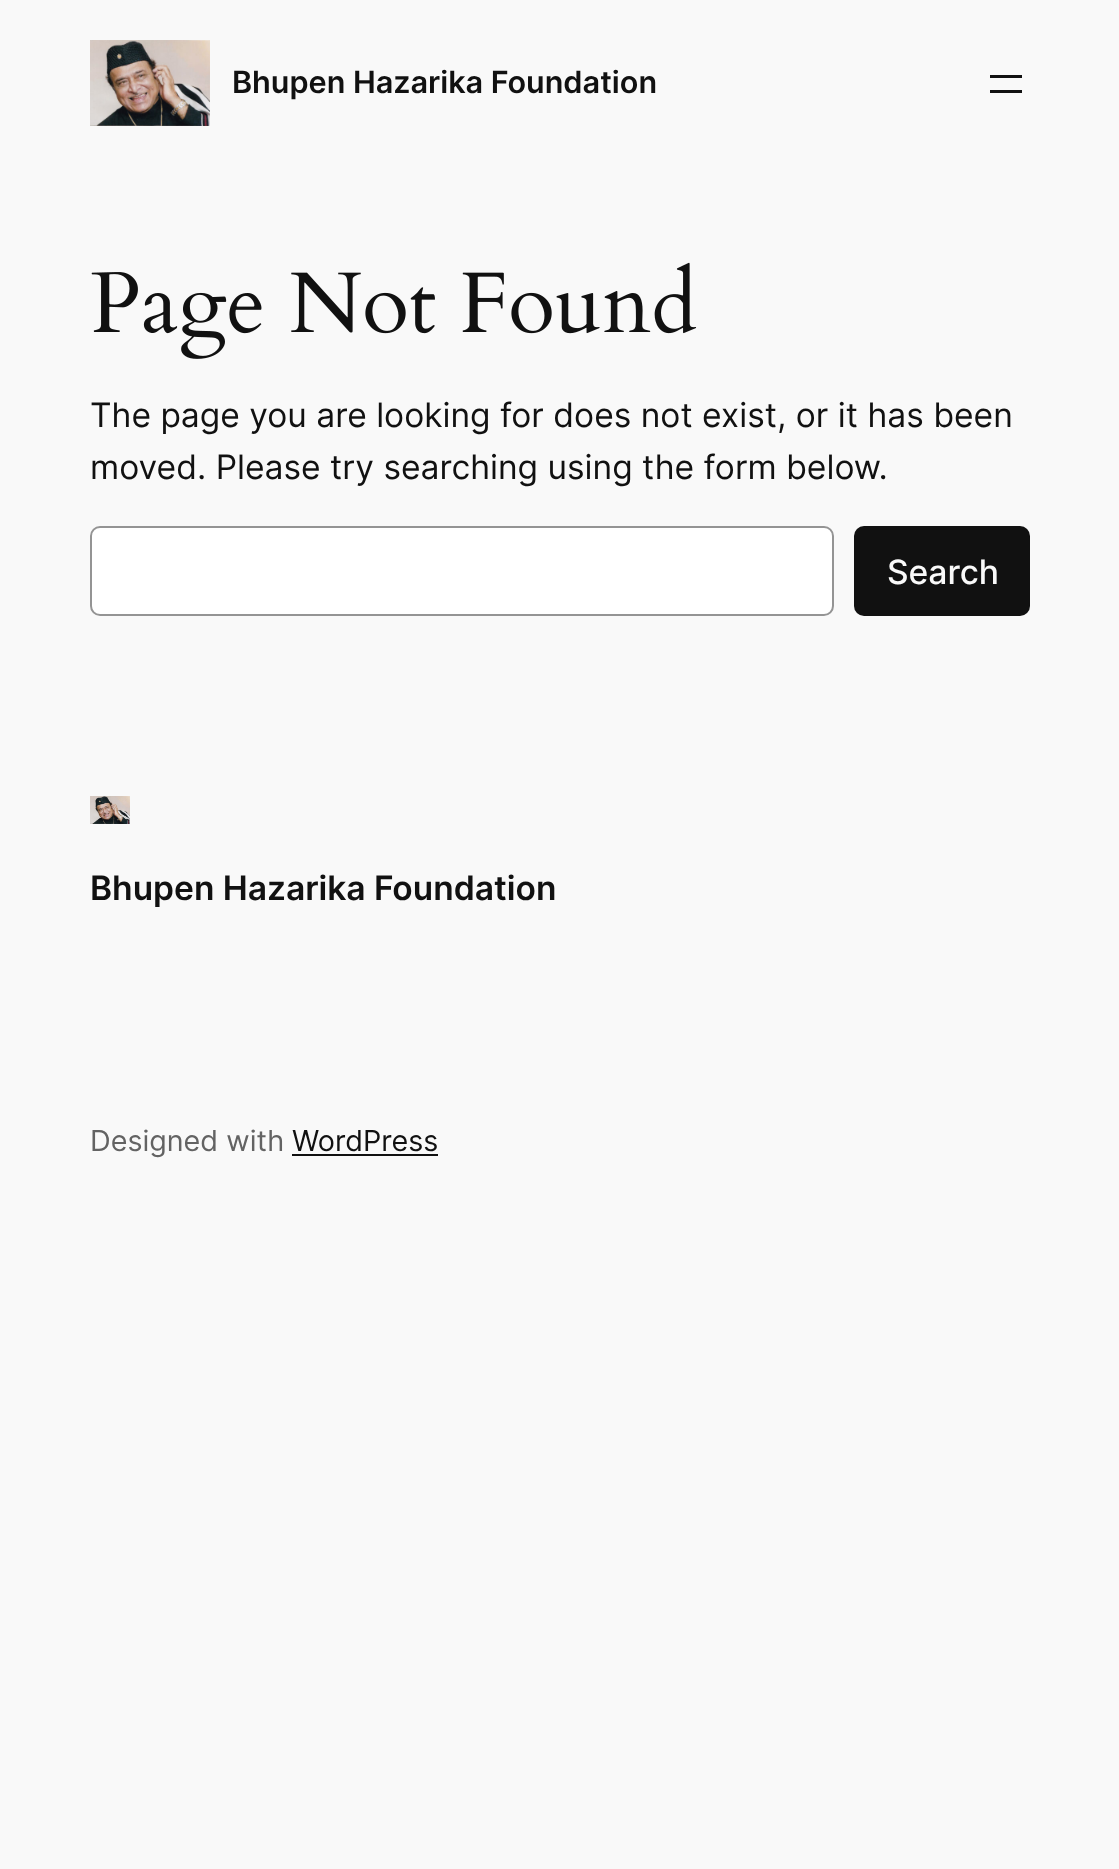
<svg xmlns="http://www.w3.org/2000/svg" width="1119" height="1869">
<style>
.a{font:600 30.6px Inter;fill:#111}
.b{font:33.6px Inter;fill:#111}
.c{font:500 33.6px Inter;fill:#f9f9f9}
.d{font:600 33.6px Inter;fill:#111}
.e{font:28.75px Inter;fill:#636363}
.f{font:28.75px Inter;fill:#111}
</style>
<rect width="100%" height="100%" fill="#f9f9f9"/>
<image href="1.png" x="90" y="40" width="120" height="86"/>
<path fill="#111" d="M990 75h32v3H990z"/>
<path fill="#111" d="M990 90h32v3H990z"/>
<image href="2.png" x="91" y="262" width="606" height="97"/>
<rect fill="#fff" stroke="#949494" stroke-width="2" x="91" y="527" width="742" height="88" rx="9"/>
<rect fill="#111" x="854" y="526" width="176" height="90" rx="10"/>
<image href="3.png" x="90" y="796" width="40" height="28"/>
<path fill="#111" d="M292 1154h146v2H292z"/>
<text class="a" x="232" y="93">Bhupen Hazarika Foundation</text>
<text class="b" x="90" y="427">The page you are looking for does not exist, or it has been</text>
<text class="b" x="90" y="479">moved. Please try searching using the form below.</text>
<text class="c" x="887" y="584">Search</text>
<text class="d" x="90" y="900">Bhupen Hazarika Foundation</text>
<text class="e" x="90" y="1151">Designed with</text>
<text class="f" x="292" y="1151">WordPress</text>
</svg>
